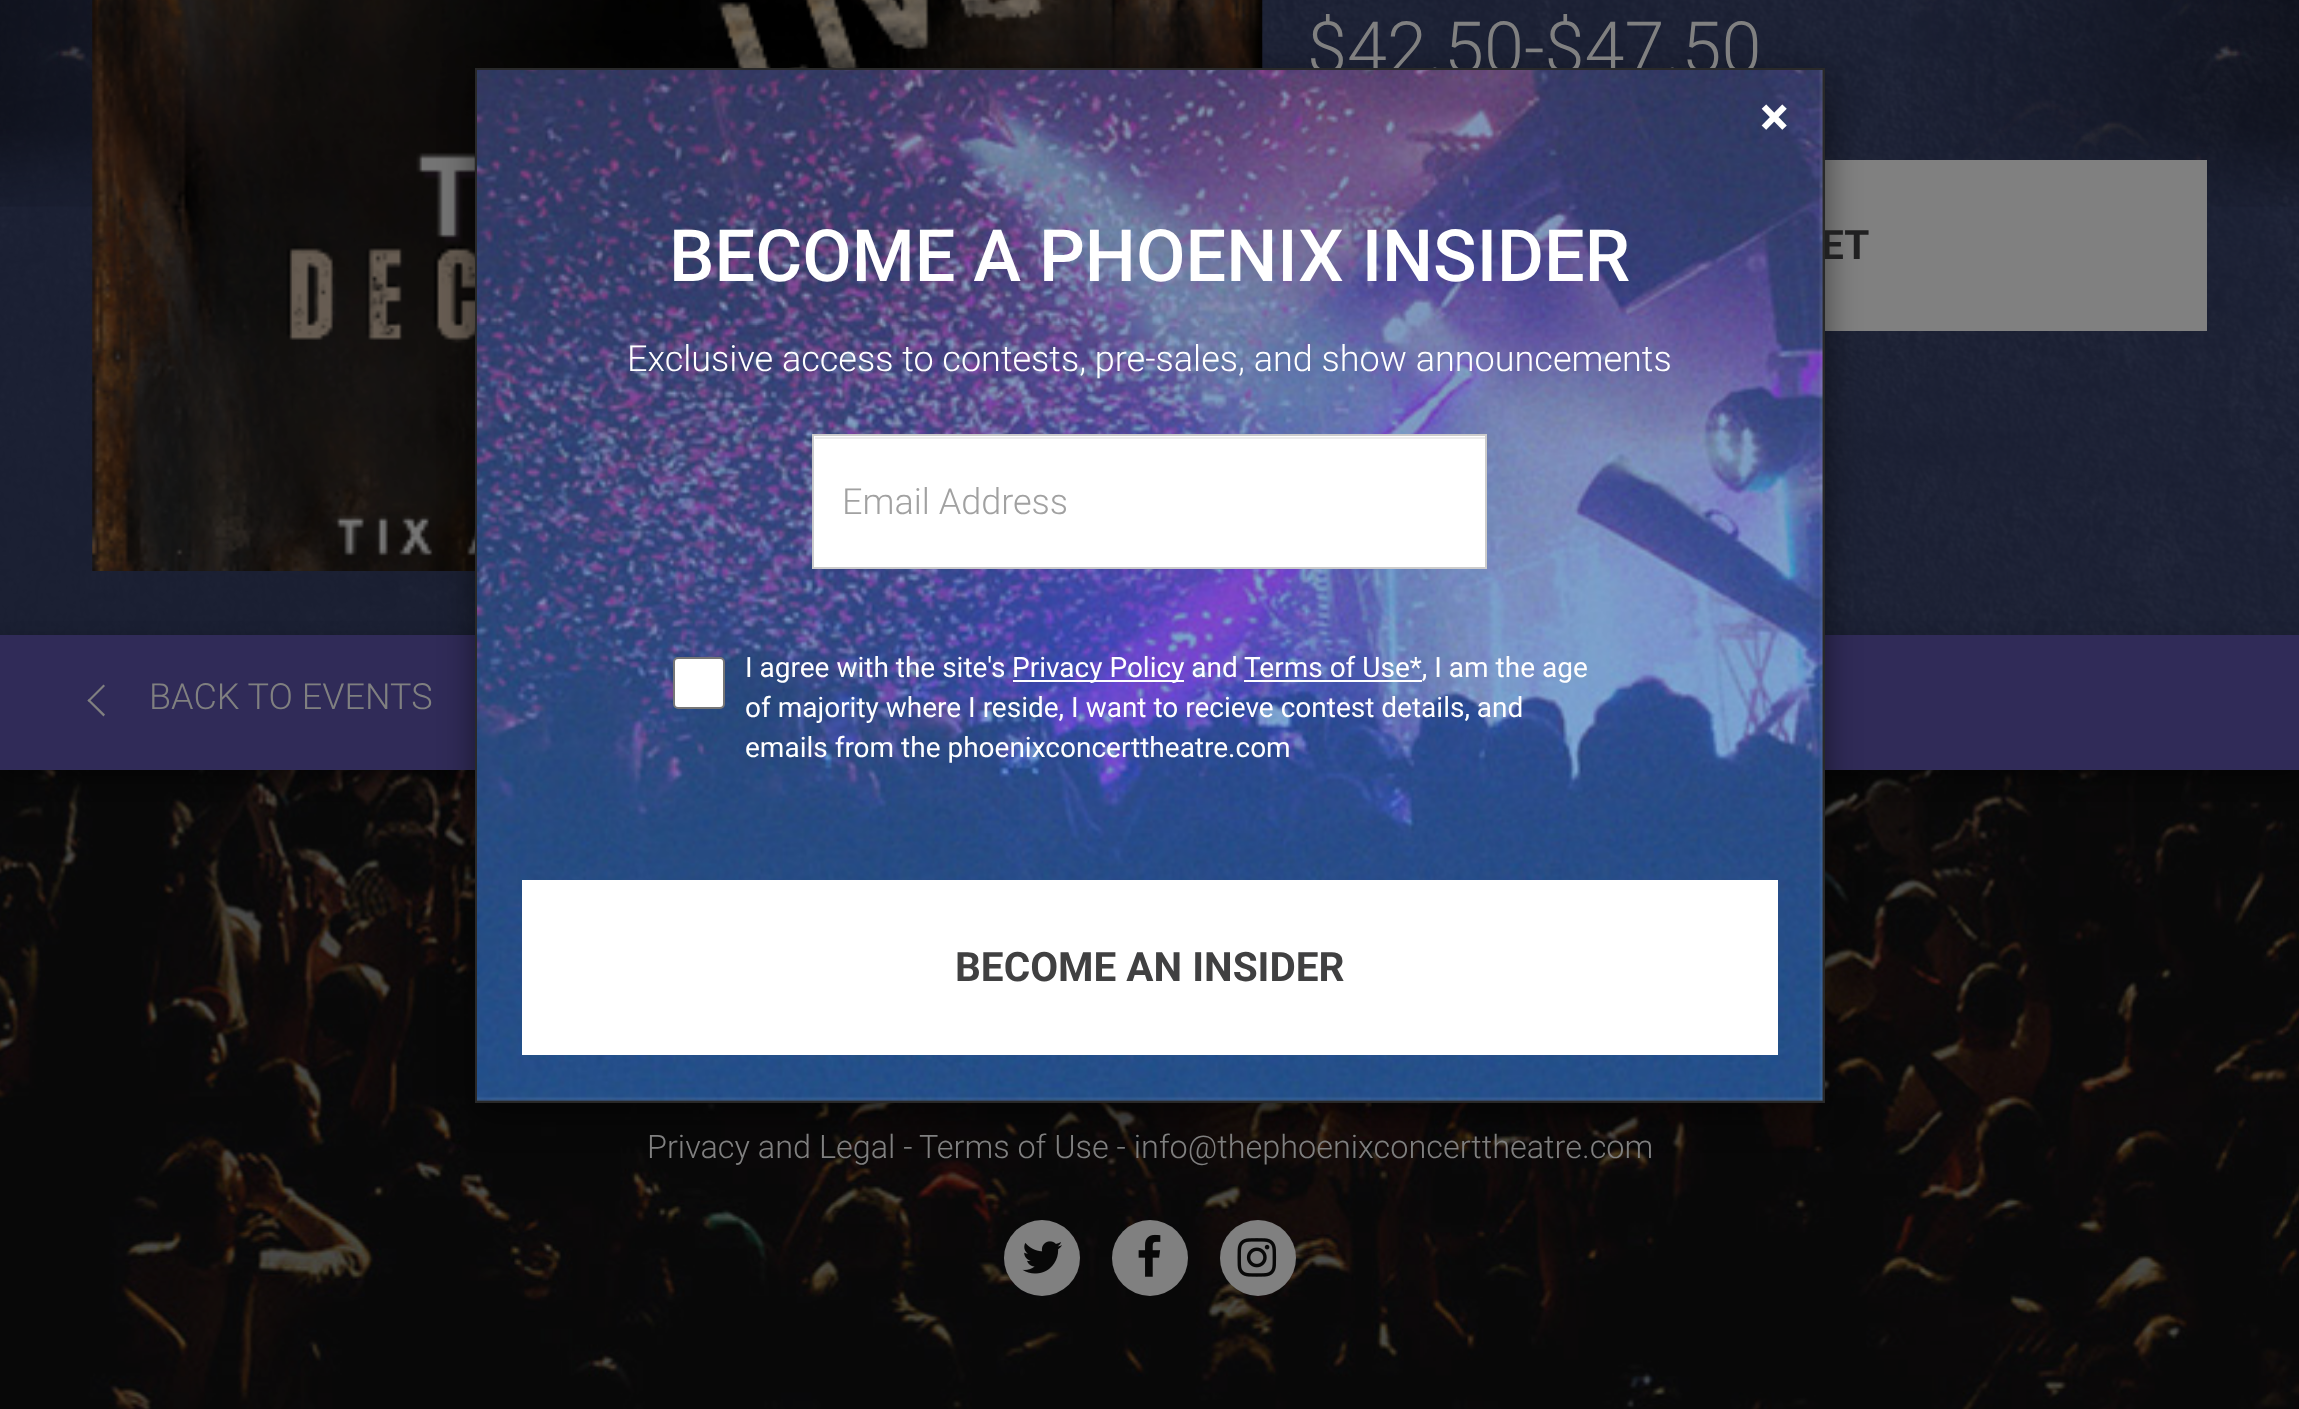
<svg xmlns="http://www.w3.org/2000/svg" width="2299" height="1409">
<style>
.a{font:300 72px Roboto;fill:#808080}
.b{font:bold 40.5px Roboto;fill:#202021}
.c{font:300 36px Roboto;fill:#808080}
.d{font:bold 54px Roboto;fill:#fff}
.e{font:500 72px Roboto;fill:#fff}
.f{font:300 36px Roboto;fill:#fff}
.g{font:300 36px Roboto;fill:#a1a1a1}
.h{font:28px Roboto;fill:#fff}
.i{font:bold 40.5px Roboto;fill:#404041}
.j{font:300 32.4px Roboto;fill:#808080}
</style>
<rect width="100%" height="100%" fill="#fff"/>
<image href="1.png" x="0" y="0" width="2299" height="635"/>
<path fill="#1f253dcc" d="M0 0h2299v635H0z"/>
<image href="2.png" x="0" y="0" width="93" height="207"/>
<image href="3.png" x="92" y="0" width="1171" height="571"/>
<image href="4.png" x="1911" y="0" width="388" height="207"/>
<path fill="#808080" d="M1825 160h382v171H1825z"/>
<image href="6.png" x="0" y="770" width="2299" height="639"/>
<path fill="#00000066" filter="blur(10px)" d="M0 644h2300v135H0z"/>
<path fill="#302b58" d="M0 635h2299v135H0z"/>
<path fill="#808080" d="M103.5 716.5l-16-16l1.5-1.5l16 15.5z"/>
<path fill="#808080" d="M89 702l-1.5-1.5l16-16l1.5 1.5z"/>
<path fill="#00000080" filter="blur(17px)" d="M475 79h1350v1035H475z"/>
<circle fill="#808080" cx="1042" cy="1258" r="38"/>
<image href="7.png" x="1022" y="1241" width="40" height="33"/>
<circle fill="#808080" cx="1150" cy="1258" r="38"/>
<image href="8.png" x="1138" y="1234" width="23" height="43"/>
<circle fill="#808080" cx="1258" cy="1258" r="38"/>
<image href="9.png" x="1237" y="1238" width="40" height="39"/>
<text class="a" x="1307" y="73">$42.50-$47.50</text>
<text class="b" x="1821" y="259">ET</text>
<text class="c" x="149" y="709">BACK TO EVENTS</text>
<path fill="#333" stroke="#292929" stroke-width="2" d="M476 69h1348v1033H476z"/>
<image href="5.png" x="477" y="70" width="1346" height="1031"/>
<text class="d" x="1760" y="135">×</text>
<text class="e" x="669" y="281">BECOME A PHOENIX INSIDER</text>
<text class="f" x="627" y="371">Exclusive access to contests, pre-sales, and show announcements</text>
<path fill="#fff" d="M814 436h671v131H814z"/>
<path fill="#ececec" d="M815 437h670v2H815z"/>
<path fill="none" stroke="#ccc" stroke-width="2" d="M813 435h673v133H813z"/>
<text class="g" x="842" y="514">Email Address</text>
<rect fill="#fff" stroke="#767676" stroke-width="2" x="674" y="658" width="50" height="50" rx="4"/>
<text class="h" x="745" y="677">I agree with the site's</text>
<path fill="#fff" d="M1013 680h171v2H1013z"/>
<text class="h" x="1012" y="677">Privacy Policy and</text>
<path fill="#fff" d="M1244 680h178v2H1244z"/>
<text class="h" x="1244" y="677">Terms of Use*, I am the age</text>
<text class="h" x="745" y="717">of majority where I reside, I want to recieve contest details, and</text>
<text class="h" x="745" y="757">emails from the phoenixconcerttheatre.com</text>
<path fill="#fff" d="M522 880h1256v175H522z"/>
<text class="i" x="955" y="981">BECOME AN INSIDER</text>
<text class="j" x="647" y="1158">Privacy and Legal -</text>
<text class="j" x="919" y="1158">Terms of Use - info@thephoenixconcerttheatre.com</text>
</svg>
